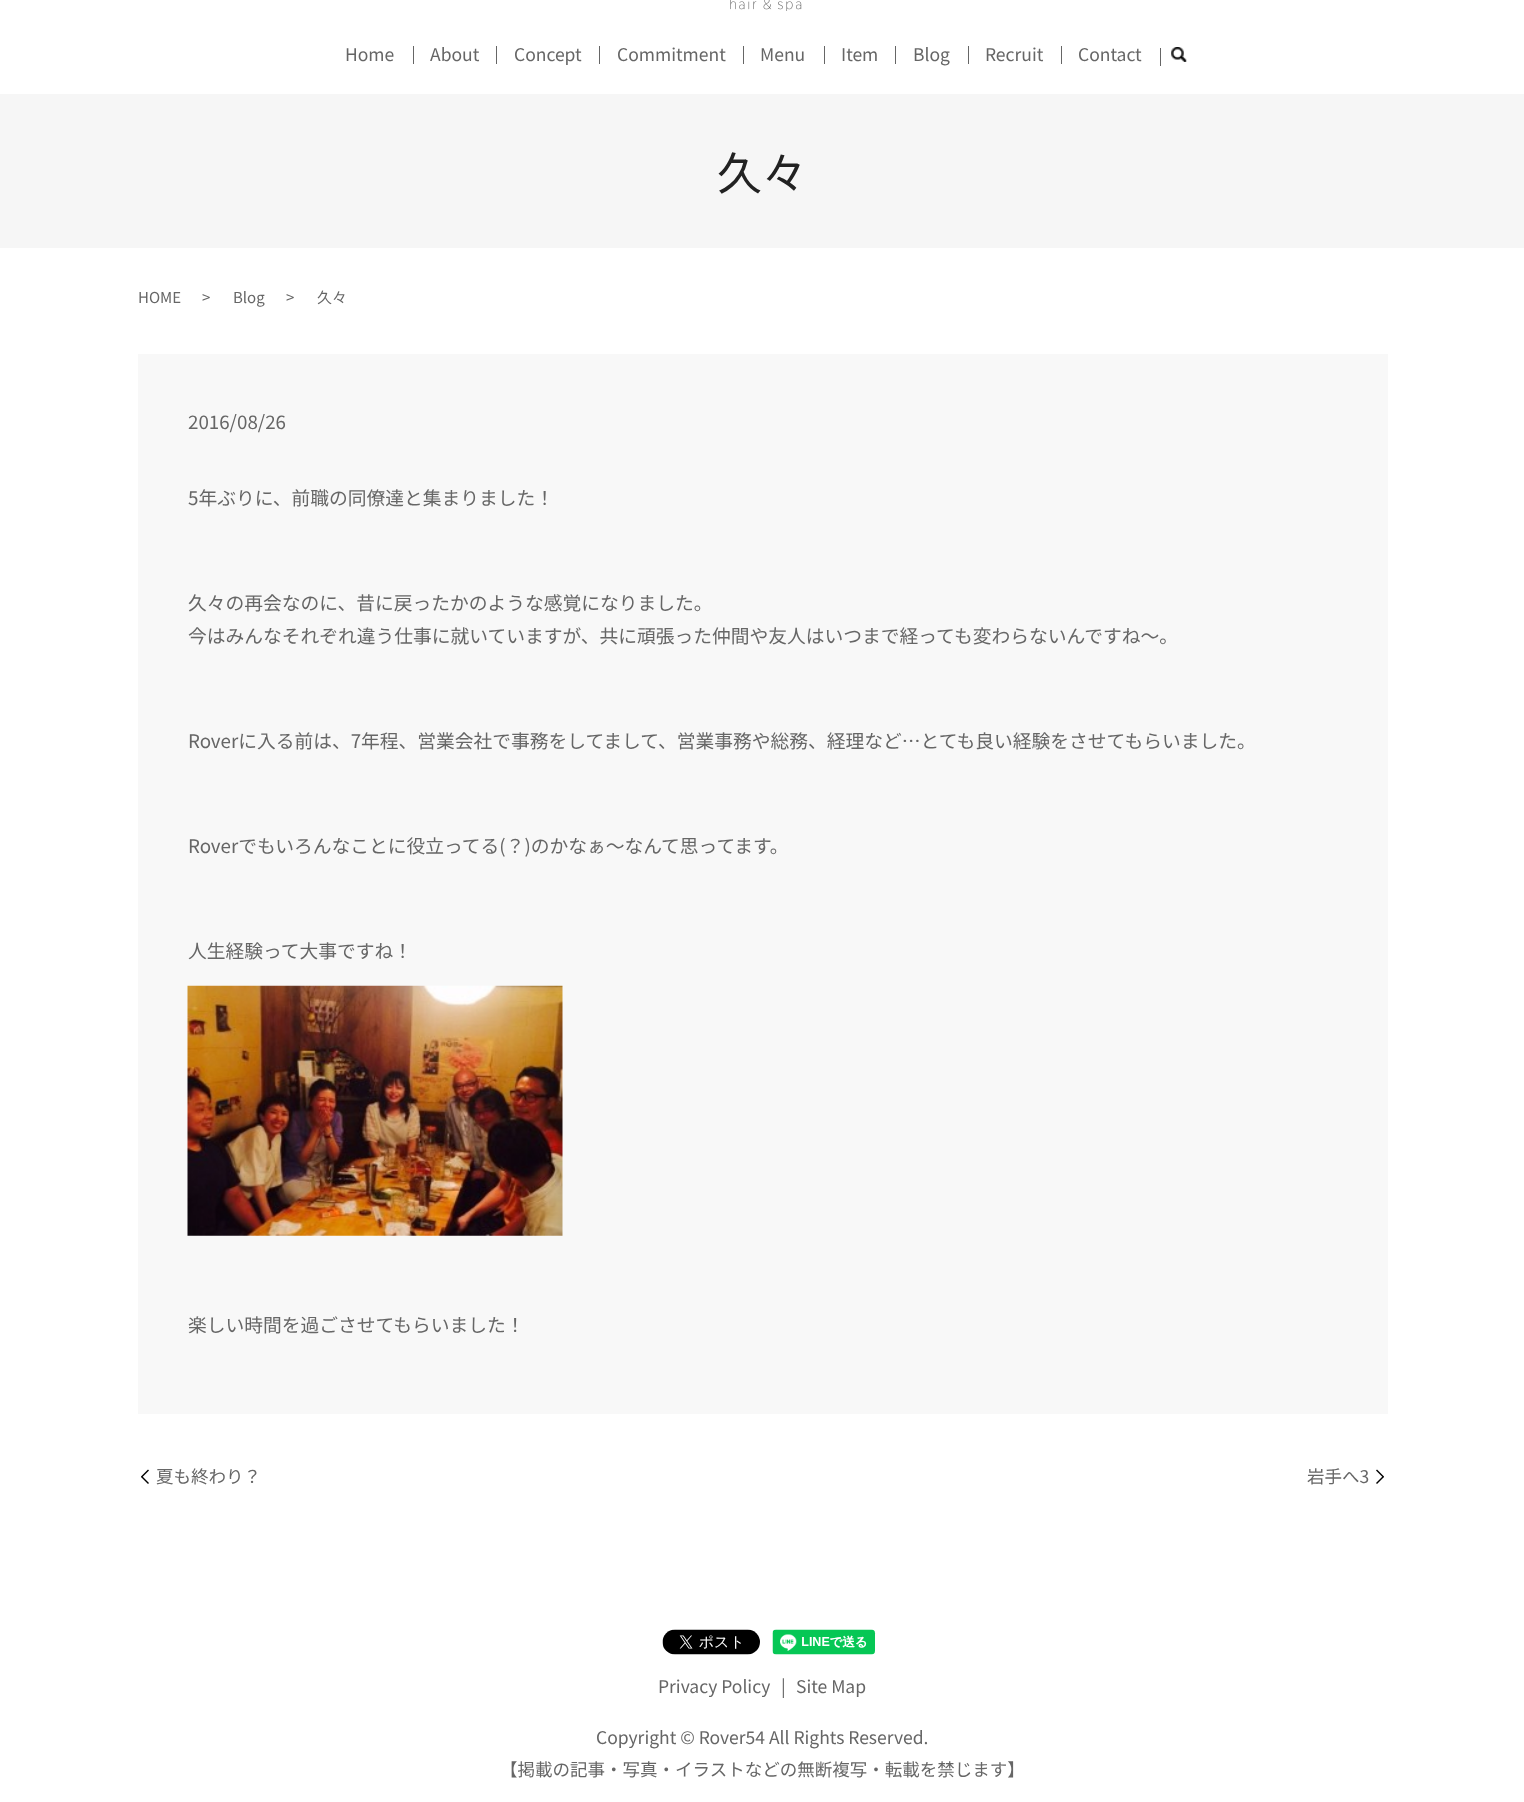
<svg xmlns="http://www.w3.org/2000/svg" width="1524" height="1802">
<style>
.a{font:17.5px Noto Sans JP;fill:#666}
.b{font:45px Noto Sans JP;fill:#222}
.c{font:15px Noto Sans JP;fill:#666}
.d{font:18.75px Noto Sans JP;fill:#666}
</style>
<rect width="100%" height="100%" fill="#fff"/>
<image href="1.png" x="730" y="0" width="72" height="11"/>
<path fill="#666" d="M413 46h1v18H413z"/>
<path fill="#666" d="M496 46h1v18H496z"/>
<path fill="#666" d="M599 46h1v18H599z"/>
<path fill="#666" d="M743 46h1v18H743z"/>
<path fill="#666" d="M824 46h1v18H824z"/>
<path fill="#666" d="M895 46h1v18H895z"/>
<path fill="#666" d="M968 46h1v18H968z"/>
<path fill="#666" d="M1061 46h1v18H1061z"/>
<image href="2.png" x="1171" y="47" width="16" height="15"/>
<path fill="#666" d="M1160 48h1v18H1160z"/>
<path fill="#f6f6f6" d="M0 94h1524v154H0z"/>
<path fill="#f8f8f8" d="M138 354h1250v1060H138z"/>
<image href="3.png" x="187" y="985" width="376" height="251"/>
<path fill="#000" d="M141 1476.5l7-7l1 1l-7 7z"/>
<path fill="#000" d="M148 1484l-7-7l1-1l7 7z"/>
<path fill="#000" d="M1377 1469.5l7 7l-1 1l-7-7z"/>
<path fill="#000" d="M1384 1477l-7 7l-1-1l7-7z"/>
<image href="4.png" x="662" y="1629" width="98" height="26"/>
<image href="5.png" x="772" y="1629" width="104" height="26"/>
<text class="a" x="345" y="61">Home</text>
<text class="a" x="430" y="61">About</text>
<text class="a" x="514" y="61">Concept</text>
<text class="a" x="617" y="61">Commitment</text>
<text class="a" x="760" y="61">Menu</text>
<text class="a" x="841" y="61">Item</text>
<text class="a" x="913" y="61">Blog</text>
<text class="a" x="985" y="61">Recruit</text>
<text class="a" x="1078" y="61">Contact</text>
<text class="b" x="717" y="190">久々</text>
<text class="c" x="138" y="303">HOME</text>
<text class="c" x="202" y="303">&gt;</text>
<text class="c" x="233" y="303">Blog</text>
<text class="c" x="286" y="303">&gt;</text>
<text class="c" x="317" y="303">久々</text>
<text class="d" x="188" y="429">2016/08/26</text>
<text class="d" x="188" y="505">5年ぶりに、前職の同僚達と集まりました！</text>
<text class="d" x="188" y="610">久々の再会なのに、昔に戻ったかのような感覚になりました。</text>
<text class="d" x="188" y="643">今はみんなそれぞれ違う仕事に就いていますが、共に頑張った仲間や友人はいつまで経っても変わらないんですね〜。</text>
<text class="d" x="188" y="748">Roverに入る前は、7年程、営業会社で事務をしてまして、営業事務や総務、経理など…とても良い経験をさせてもらいました。</text>
<text class="d" x="188" y="853">Roverでもいろんなことに役立ってる(？)のかなぁ〜なんて思ってます。</text>
<text class="d" x="188" y="958">人生経験って大事ですね！</text>
<text class="d" x="188" y="1332">楽しい時間を過ごさせてもらいました！</text>
<text class="a" x="156" y="1483">夏も終わり？</text>
<text class="a" x="1307" y="1483">岩手へ3</text>
<text class="a" x="658" y="1693">Privacy Policy</text>
<text class="a" x="781" y="1693">|</text>
<text class="a" x="796" y="1693">Site Map</text>
<text class="a" x="596" y="1744">Copyright © Rover54 All Rights Reserved.</text>
<text class="a" x="500" y="1776">【掲載の記事・写真・イラストなどの無断複写・転載を禁じます】</text>
</svg>
